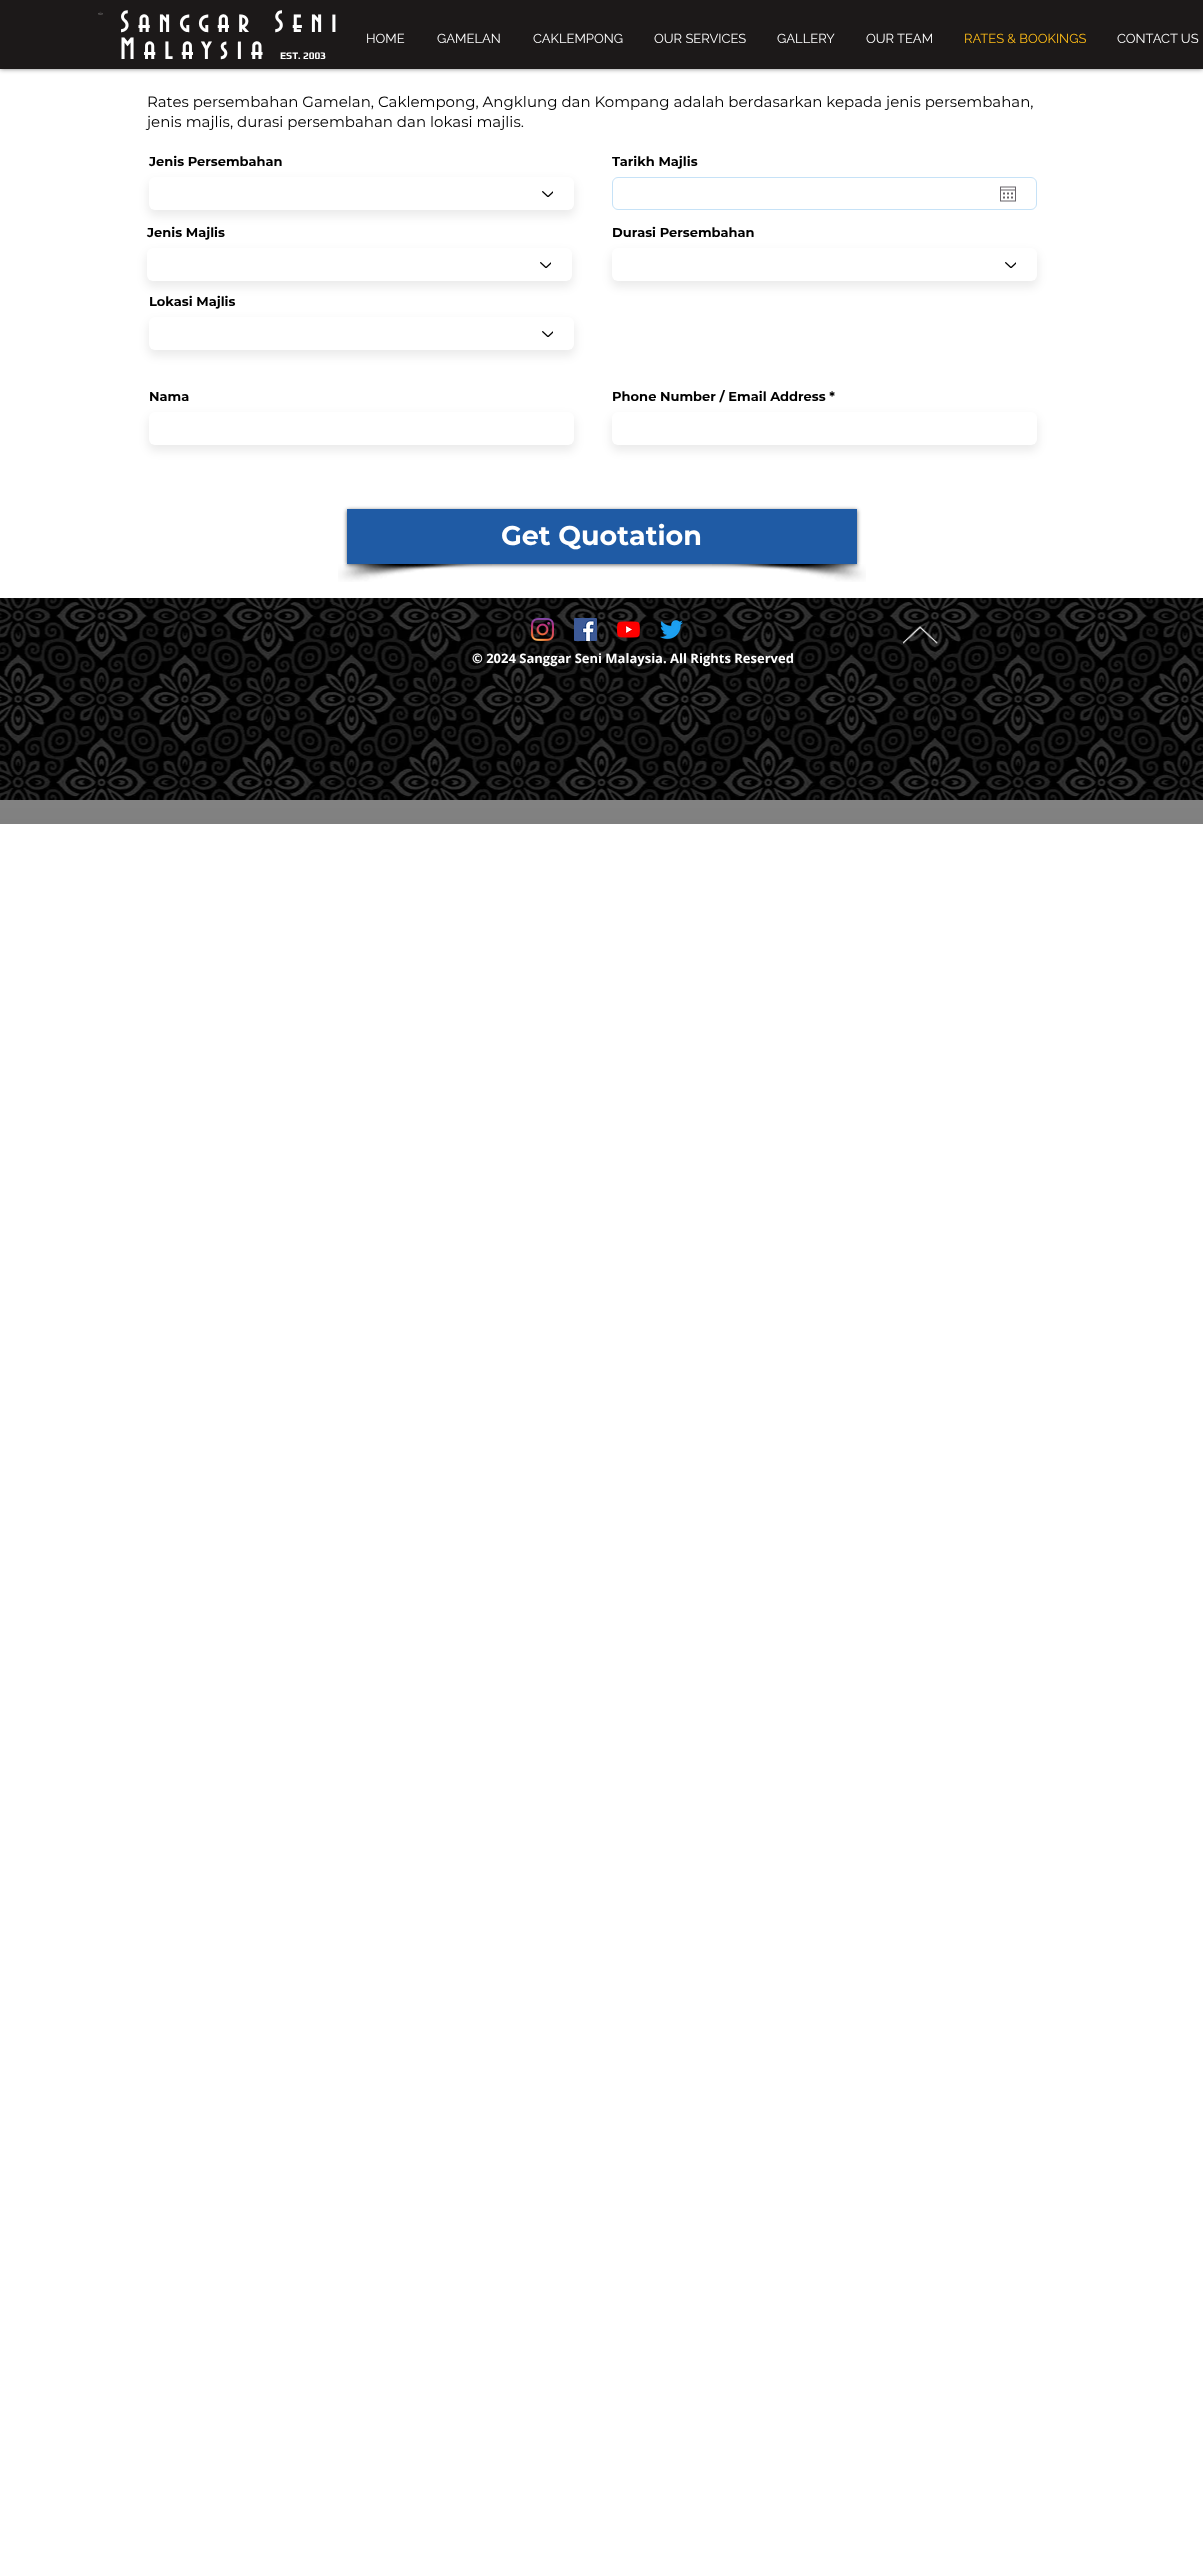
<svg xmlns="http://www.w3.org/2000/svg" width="1203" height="2560">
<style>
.a{font:bold 31px 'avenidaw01';letter-spacing:9.25px;fill:#fff}
.b{font:bold 10px Play;fill:#fff}
.c{font:13px Raleway;fill:#fff}
.d{font:13px Raleway;fill:#ffbd17}
.e{font:15px Montserrat;fill:#000}
.f{font:bold 13px Montserrat;fill:#000}
.g{font:bold 27px Montserrat;fill:#fff}
.h{font:bold 13px Open Sans;fill:#fff}
</style>
<rect width="100%" height="100%" fill="#fff"/>
<path fill="#00000080" filter="blur(2.5px)" d="M0 0h1203v69H0z"/>
<path fill="#1c1919" d="M0 0h1203v69H0z"/>
<image href="1.png" x="98" y="11" width="5" height="4"/>
<rect fill="#00000014" filter="blur(5px)" x="148" y="181" width="427" height="35" rx="7"/>
<rect fill="#fff" x="149" y="177" width="425" height="33" rx="6"/>
<image href="2.png" x="542" y="191" width="11" height="6"/>
<rect fill="none" stroke="#c6e2f7" x="612.5" y="177.5" width="424" height="32" rx="5.5"/>
<image href="3.png" x="1000" y="186" width="16" height="16"/>
<rect fill="#00000014" filter="blur(5px)" x="146" y="252" width="427" height="35" rx="7"/>
<rect fill="#fff" x="147" y="248" width="425" height="33" rx="6"/>
<image href="2.png" x="540" y="262" width="11" height="6"/>
<rect fill="#00000014" filter="blur(5px)" x="611" y="252" width="427" height="35" rx="7"/>
<rect fill="#fff" x="612" y="248" width="425" height="33" rx="6"/>
<image href="2.png" x="1005" y="262" width="11" height="6"/>
<rect fill="#00000014" filter="blur(5px)" x="148" y="321" width="427" height="35" rx="7"/>
<rect fill="#fff" x="149" y="317" width="425" height="33" rx="6"/>
<image href="2.png" x="542" y="331" width="11" height="6"/>
<rect fill="#00000014" filter="blur(5px)" x="148" y="416" width="427" height="35" rx="7"/>
<rect fill="#fff" x="149" y="412" width="425" height="33" rx="6"/>
<rect fill="#00000014" filter="blur(5px)" x="611" y="416" width="427" height="35" rx="7"/>
<rect fill="#fff" x="612" y="412" width="425" height="33" rx="6"/>
<image href="4.png" x="338" y="564" width="154" height="18"/>
<image href="5.png" x="712" y="564" width="154" height="18"/>
<path fill="#00000099" filter="blur(2px)" d="M347 510h510v55H347z"/>
<path fill="#1f5ba5" d="M347 509h510v55H347z"/>
<image href="6.png" x="0" y="598" width="1203" height="202"/>
<image href="7.png" x="531" y="618" width="23" height="23"/>
<image href="8.png" x="574" y="618" width="23" height="23"/>
<image href="9.png" x="617" y="621" width="23" height="17"/>
<image href="10.png" x="660" y="620" width="23" height="20"/>
<image href="11.png" x="903" y="626" width="35" height="18"/>
<path fill="#7b7b7b" d="M0 800h1203v24H0z"/>
<image href="12.png" x="0" y="800" width="1203" height="24"/>
<text class="a" x="120" y="32">Sanggar Seni</text>
<text class="a" x="120" y="59">Malaysia</text>
<text class="b" x="280" y="59">EST. 2003</text>
<text class="c" x="366" y="43">HOME</text>
<text class="c" x="437" y="43">GAMELAN</text>
<text class="c" x="533" y="43">CAKLEMPONG</text>
<text class="c" x="654" y="43">OUR SERVICES</text>
<text class="c" x="777" y="43">GALLERY</text>
<text class="c" x="866" y="43">OUR TEAM</text>
<text class="d" x="964" y="43">RATES &amp; BOOKINGS</text>
<text class="c" x="1117" y="43">CONTACT US</text>
<text class="e" x="147" y="107">Rates persembahan Gamelan, Caklempong, Angklung dan Kompang adalah berdasarkan kepada jenis persembahan,</text>
<text class="e" x="147" y="127">jenis majlis, durasi persembahan dan lokasi majlis.</text>
<text class="f" x="149" y="166">Jenis Persembahan</text>
<text class="f" x="612" y="166">Tarikh Majlis</text>
<text class="f" x="147" y="237">Jenis Majlis</text>
<text class="f" x="612" y="237">Durasi Persembahan</text>
<text class="f" x="149" y="306">Lokasi Majlis</text>
<text class="f" x="149" y="401">Nama</text>
<text class="f" x="612" y="401">Phone Number / Email Address *</text>
<text class="g" x="501" y="545">Get Quotation</text>
<text class="h" x="472" y="663">© 2024 Sanggar Seni Malaysia. All Rights Reserved</text>
</svg>
